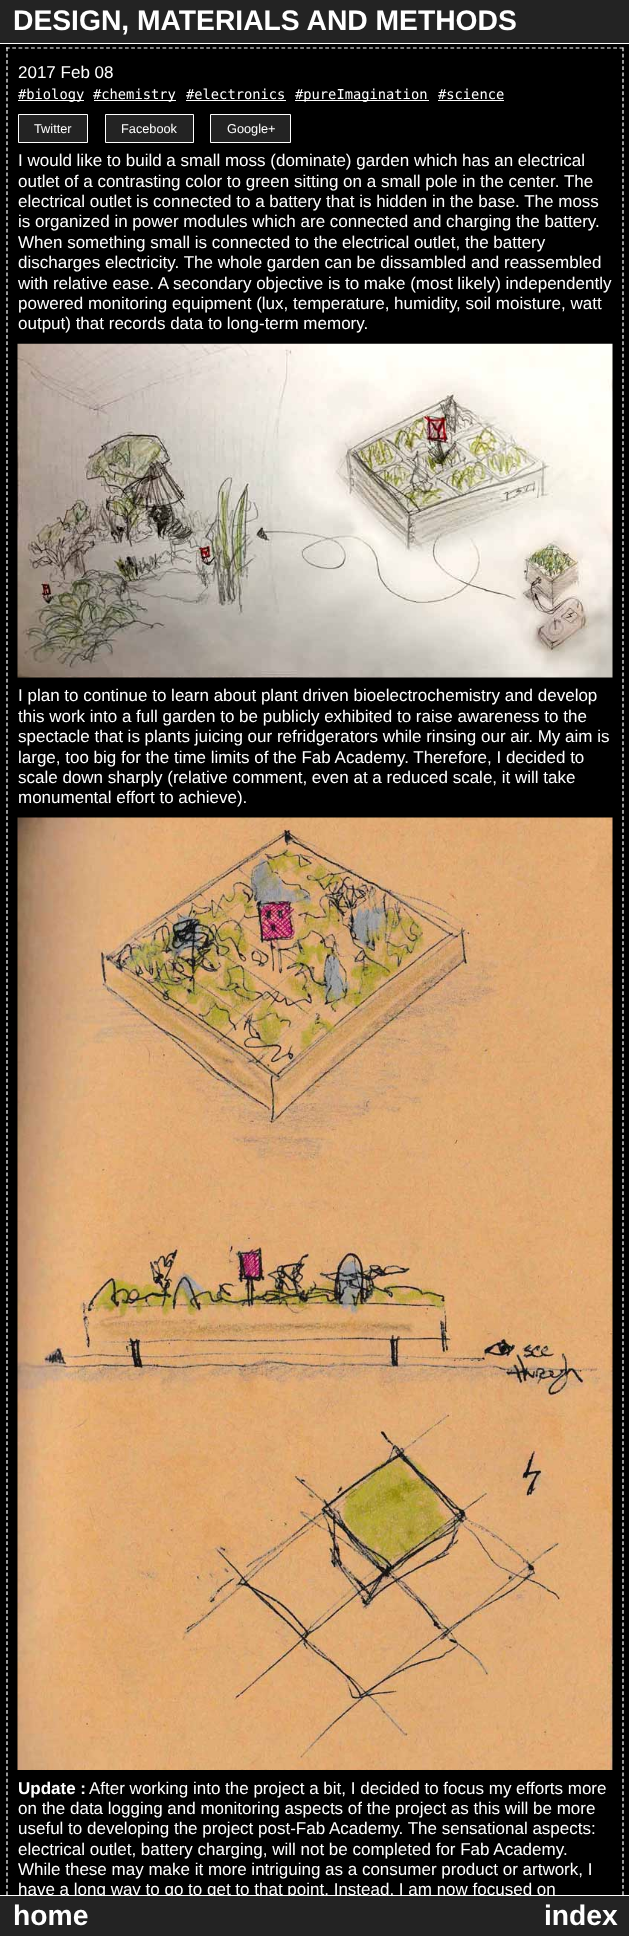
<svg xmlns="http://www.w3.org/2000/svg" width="629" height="1936">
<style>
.a{font:bold 28.25px Liberation Sans;fill:#fff}
.b{font:17px Liberation Sans;fill:#fff}
.c{font:13.75px DejaVu Sans Mono;fill:#fff}
.d{font:12.75px Liberation Sans;fill:#fff}
.e{font:bold 17px Liberation Sans;fill:#fff}
</style>
<rect width="100%" height="100%" fill="#000"/>
<path fill="#232323" d="M0 0h629v43H0z"/>
<path fill="#fff" d="M0 43h629v1H0z"/>
<path fill="none" stroke="#fff" stroke-width="1.2" stroke-dasharray="3.75 2.51" d="M6 48h618"/>
<path fill="none" stroke="#fff" stroke-width="1.2" stroke-dasharray="3.75 2.5" d="M623 47.5v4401.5"/>
<path fill="none" stroke="#fff" stroke-width="1.2" stroke-dasharray="3.75 2.5" d="M7 47.5v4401.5"/>
<path fill="#fff" d="M0 1895h629v1H0z"/>
<path fill="#fff" d="M18 100h66v1H18z"/>
<path fill="#fff" d="M94 100h82v1H94z"/>
<path fill="#fff" d="M186 100h100v1H186z"/>
<path fill="#fff" d="M295 100h134v1H295z"/>
<path fill="#fff" d="M438 100h66v1H438z"/>
<path fill="#232323" stroke="#fff" d="M18.5 114.5h69v28H18.5z"/>
<path fill="#232323" stroke="#fff" d="M105.5 114.5h88v28H105.5z"/>
<path fill="#232323" stroke="#fff" d="M210.5 114.5h80v28H210.5z"/>
<image href="1.png" x="17" y="343" width="596" height="335"/>
<image href="2.png" x="17" y="817" width="596" height="953"/>
<text class="a" x="13" y="30">DESIGN, MATERIALS AND METHODS</text>
<text class="b" x="18" y="78">2017 Feb 08</text>
<text class="c" x="18" y="99">#biology</text>
<text class="c" x="93" y="99">#chemistry</text>
<text class="c" x="186" y="99">#electronics</text>
<text class="c" x="295" y="99">#pureImagination</text>
<text class="c" x="438" y="99">#science</text>
<text class="d" x="34" y="133">Twitter</text>
<text class="d" x="121" y="133">Facebook</text>
<text class="d" x="227" y="133">Google+</text>
<text class="b" x="18" y="166">I would like to build a small moss (dominate) garden which has an electrical</text>
<text class="b" x="18" y="187">outlet of a contrasting color to green sitting on a small pole in the center. The</text>
<text class="b" x="18" y="207">electrical outlet is connected to a battery that is hidden in the base. The moss</text>
<text class="b" x="18" y="227">is organized in power modules which are connected and charging the battery.</text>
<text class="b" x="18" y="248">When something small is connected to the electrical outlet, the battery</text>
<text class="b" x="18" y="268">discharges electricity. The whole garden can be dissambled and reassembled</text>
<text class="b" x="18" y="289">with relative ease. A secondary objective is to make (most likely) independently</text>
<text class="b" x="18" y="309">powered monitoring equipment (lux, temperature, humidity, soil moisture, watt</text>
<text class="b" x="18" y="329">output) that records data to long-term memory.</text>
<text class="b" x="18" y="701">I plan to continue to learn about plant driven bioelectrochemistry and develop</text>
<text class="b" x="18" y="722">this work into a full garden to be publicly exhibited to raise awareness to the</text>
<text class="b" x="18" y="742">spectacle that is plants juicing our refridgerators while rinsing our air. My aim is</text>
<text class="b" x="18" y="763">large, too big for the time limits of the Fab Academy. Therefore, I decided to</text>
<text class="b" x="18" y="783">scale down sharply (relative comment, even at a reduced scale, it will take</text>
<text class="b" x="18" y="803">monumental effort to achieve).</text>
<text class="e" x="18" y="1794">Update :</text>
<text class="b" x="89" y="1794">After working into the project a bit, I decided to focus my efforts more</text>
<text class="b" x="18" y="1814">on the data logging and monitoring aspects of the project as this will be more</text>
<text class="b" x="18" y="1834">useful to developing the project post-Fab Academy. The sensational aspects:</text>
<text class="b" x="18" y="1855">electrical outlet, battery charging, will not be completed for Fab Academy.</text>
<text class="b" x="18" y="1875">While these may make it more intriguing as a consumer product or artwork, I</text>
<text class="b" x="18" y="1895">have a long way to go to get to that point. Instead, I am now focused on</text>
<path fill="#232323" d="M0 1896h629v40H0z"/>
<text class="a" x="544" y="1925">index</text>
<text class="a" x="13" y="1925">home</text>
</svg>
